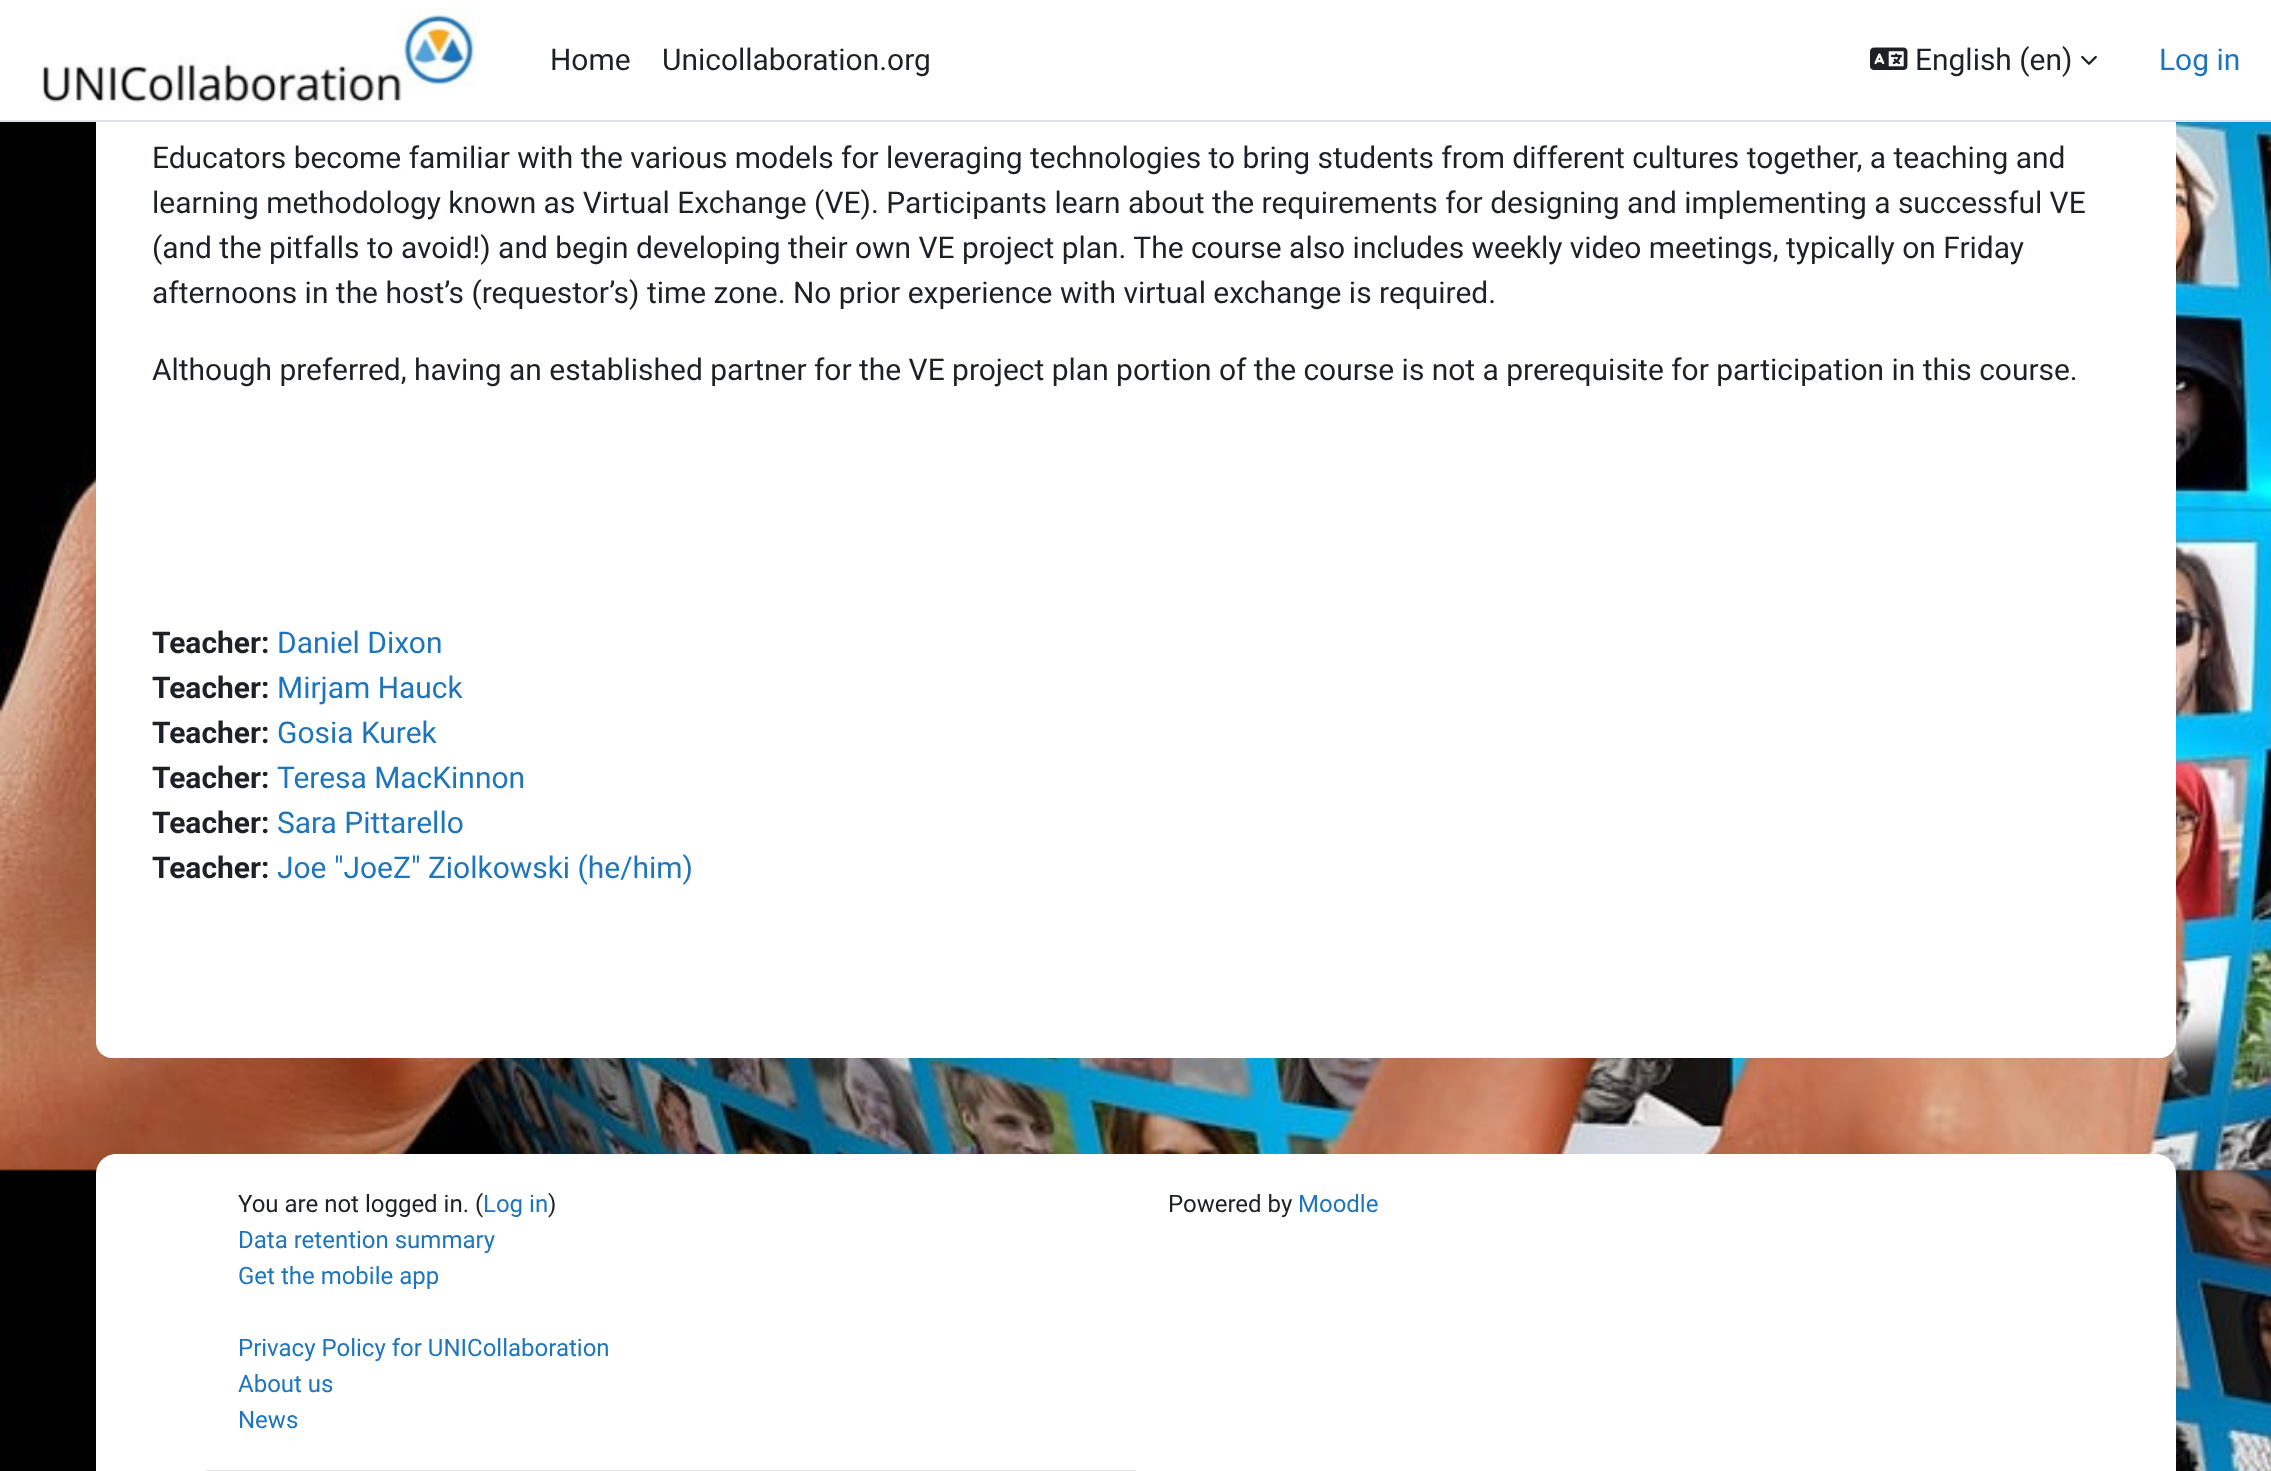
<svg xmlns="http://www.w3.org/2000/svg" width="2271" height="1471">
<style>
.a{font:29.95px Roboto;fill:#1d2125}
.b{font:29.95px Roboto;fill:#1e75bc}
.c{font:bold 29.95px Roboto;fill:#1d2125}
.d{font:24px Roboto;fill:#1d2125}
.e{font:24px Roboto;fill:#1e75bc}
</style>
<rect width="100%" height="100%" fill="#fff"/>
<image href="1.png" x="0" y="122" width="2271" height="1349"/>
<rect fill="#fff" x="96" y="-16" width="2080" height="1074" rx="16"/>
<path fill="#dee2e6" d="M0 120h2271v2H0z"/>
<image href="2.png" x="42" y="8" width="435" height="97"/>
<image href="3.png" x="1870" y="47" width="38" height="23"/>
<image href="4.png" x="2081" y="55" width="16" height="10"/>
<path fill="#fff" d="M116 1154h2040c11 0 20 9 20 20v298h-2080v-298c0-11 9-20 20-20z"/>
<path fill="#dee2e6" d="M206 1470h930v1H206z"/>
<text class="a" x="550" y="70">Home</text>
<text class="a" x="662" y="70">Unicollaboration.org</text>
<text class="a" x="1915" y="70">English (en)</text>
<text class="b" x="2159" y="70">Log in</text>
<text class="a" x="152" y="168">Educators become familiar with the various models for leveraging technologies to bring students from different cultures together, a teaching and</text>
<text class="a" x="152" y="213">learning methodology known as Virtual Exchange (VE). Participants learn about the requirements for designing and implementing a successful VE</text>
<text class="a" x="152" y="258">(and the pitfalls to avoid!) and begin developing their own VE project plan. The course also includes weekly video meetings, typically on Friday</text>
<text class="a" x="152" y="303">afternoons in the host’s (requestor’s) time zone. No prior experience with virtual exchange is required.</text>
<text class="a" x="152" y="380">Although preferred, having an established partner for the VE project plan portion of the course is not a prerequisite for participation in this course.</text>
<text class="c" x="152" y="653">Teacher:</text>
<text class="b" x="277" y="653">Daniel Dixon</text>
<text class="c" x="152" y="698">Teacher:</text>
<text class="b" x="277" y="698">Mirjam Hauck</text>
<text class="c" x="152" y="743">Teacher:</text>
<text class="b" x="277" y="743">Gosia Kurek</text>
<text class="c" x="152" y="788">Teacher:</text>
<text class="b" x="277" y="788">Teresa MacKinnon</text>
<text class="c" x="152" y="833">Teacher:</text>
<text class="b" x="277" y="833">Sara Pittarello</text>
<text class="c" x="152" y="878">Teacher:</text>
<text class="b" x="277" y="878">Joe "JoeZ" Ziolkowski (he/him)</text>
<text class="d" x="238" y="1212">You are not logged in. (</text>
<text class="e" x="483" y="1212">Log in</text>
<text class="d" x="548" y="1212">)</text>
<text class="e" x="238" y="1248">Data retention summary</text>
<text class="e" x="238" y="1284">Get the mobile app</text>
<text class="e" x="238" y="1356">Privacy Policy for UNICollaboration</text>
<text class="e" x="238" y="1392">About us</text>
<text class="e" x="238" y="1428">News</text>
<text class="d" x="1168" y="1212">Powered by</text>
<text class="e" x="1298" y="1212">Moodle</text>
</svg>
